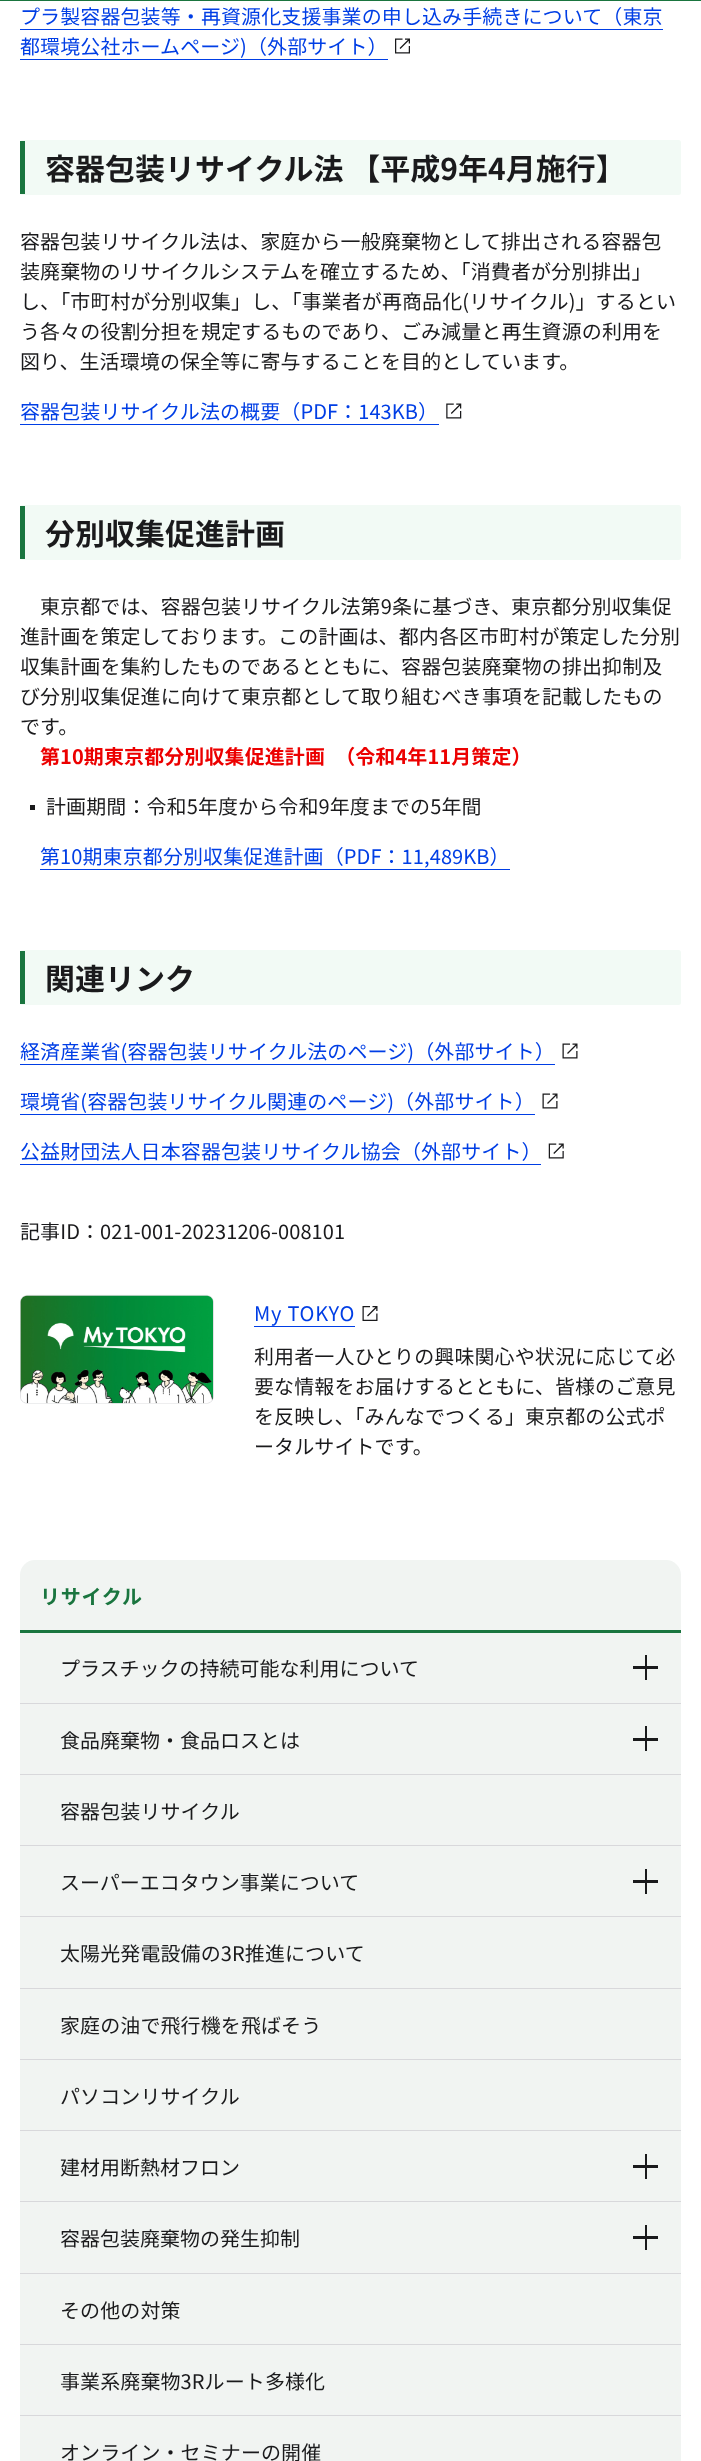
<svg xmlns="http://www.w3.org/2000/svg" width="701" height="2461">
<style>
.a{font:20px Noto Sans JP;letter-spacing:0.1px;fill:#003ee5}
.b{font:bold 30px Noto Sans JP;fill:#1a1a1c}
.c{font:20px Noto Sans JP;letter-spacing:0.1px;fill:#1a1a1c}
.d{font:bold 20px Noto Sans JP;letter-spacing:0.1px;fill:#ec0000}
.e{font:20px Noto Sans JP;letter-spacing:0.75px;fill:#003ee5}
.f{font:bold 20px Noto Sans JP;letter-spacing:0.75px;fill:#1a753f}
.g{font:20px Noto Sans JP;fill:#1a1a1c}
</style>
<rect width="100%" height="100%" fill="#fff"/>
<path fill="#1a753f" d="M0 0h701v1H0z"/>
<path fill="#003ee5" d="M20 29h643v1H20z"/>
<path fill="#003ee5" d="M20 59h368v1H20z"/>
<image href="1.png" x="395" y="38" width="15" height="16"/>
<rect fill="#f2faf5" x="20" y="140" width="661" height="55" rx="2.5"/>
<path fill="#1a753f" d="M20 141h5v53H20z"/>
<path fill="#003ee5" d="M20 424h419v1H20z"/>
<image href="2.png" x="446" y="403" width="16" height="16"/>
<rect fill="#f2faf5" x="20" y="505" width="661" height="55" rx="2.5"/>
<path fill="#1a753f" d="M20 506h5v53H20z"/>
<path fill="#1a1a1c" d="M30 805h5v5H30z"/>
<path fill="#003ee5" d="M40 869h470v1H40z"/>
<rect fill="#f2faf5" x="20" y="950" width="661" height="55" rx="2.5"/>
<path fill="#1a753f" d="M20 951h5v53H20z"/>
<path fill="#003ee5" d="M20 1064h535v1H20z"/>
<image href="3.png" x="562" y="1043" width="16" height="16"/>
<path fill="#003ee5" d="M20 1114h515v1H20z"/>
<image href="3.png" x="542" y="1093" width="16" height="16"/>
<path fill="#003ee5" d="M20 1164h521v1H20z"/>
<image href="4.png" x="548" y="1143" width="16" height="16"/>
<image href="5.png" x="20" y="1294" width="194" height="110"/>
<path fill="#003ee5" d="M254 1326h101v1H254z"/>
<image href="6.png" x="362" y="1306" width="16" height="15"/>
<rect fill="#f1f4f2" x="20" y="1560" width="661" height="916" rx="15"/>
<path fill="#1a753f" d="M20 1630h661v3H20z"/>
<path fill="#d8d8db" d="M20 1703h661v1H20z"/>
<path fill="#1a1a1c" d="M633 1666h25v3H633z"/>
<path fill="#1a1a1c" d="M645 1655h2v25H645z"/>
<path fill="#d8d8db" d="M20 1774h661v1H20z"/>
<path fill="#1a1a1c" d="M633 1738h25v3H633z"/>
<path fill="#1a1a1c" d="M645 1726h2v25H645z"/>
<path fill="#d8d8db" d="M20 1845h661v1H20z"/>
<path fill="#d8d8db" d="M20 1916h661v1H20z"/>
<path fill="#1a1a1c" d="M633 1880h25v3H633z"/>
<path fill="#1a1a1c" d="M645 1869h2v25H645z"/>
<path fill="#d8d8db" d="M20 1988h661v1H20z"/>
<path fill="#d8d8db" d="M20 2059h661v1H20z"/>
<path fill="#d8d8db" d="M20 2130h661v1H20z"/>
<path fill="#d8d8db" d="M20 2201h661v1H20z"/>
<path fill="#1a1a1c" d="M633 2165h25v3H633z"/>
<path fill="#1a1a1c" d="M645 2154h2v25H645z"/>
<path fill="#d8d8db" d="M20 2273h661v1H20z"/>
<path fill="#1a1a1c" d="M633 2236h25v3H633z"/>
<path fill="#1a1a1c" d="M645 2225h2v25H645z"/>
<path fill="#d8d8db" d="M20 2344h661v1H20z"/>
<path fill="#d8d8db" d="M20 2415h661v1H20z"/>
<text class="a" x="20" y="24">プラ製容器包装等・再資源化支援事業の申し込み手続きについて（東京</text>
<text class="a" x="20" y="54">都環境公社ホームページ)（外部サイト）</text>
<text class="b" x="45" y="180">容器包装リサイクル法 【平成9年4月施行】</text>
<text class="c" x="20" y="249">容器包装リサイクル法は、家庭から一般廃棄物として排出される容器包</text>
<text class="c" x="20" y="279">装廃棄物のリサイクルシステムを確立するため、「消費者が分別排出」</text>
<text class="c" x="20" y="309">し、「市町村が分別収集」し、「事業者が再商品化(リサイクル)」するとい</text>
<text class="c" x="20" y="339">う各々の役割分担を規定するものであり、ごみ減量と再生資源の利用を</text>
<text class="c" x="20" y="369">図り、生活環境の保全等に寄与することを目的としています。</text>
<text class="a" x="20" y="419">容器包装リサイクル法の概要（PDF：143KB）</text>
<text class="b" x="45" y="545">分別収集促進計画</text>
<text class="c" x="40" y="614">東京都では、容器包装リサイクル法第9条に基づき、東京都分別収集促</text>
<text class="c" x="20" y="644">進計画を策定しております。この計画は、都内各区市町村が策定した分別</text>
<text class="c" x="20" y="674">収集計画を集約したものであるとともに、容器包装廃棄物の排出抑制及</text>
<text class="c" x="20" y="704">び分別収集促進に向けて東京都として取り組むべき事項を記載したもの</text>
<text class="c" x="20" y="734">です。</text>
<text class="d" x="40" y="764">第10期東京都分別収集促進計画　（令和4年11月策定）</text>
<text class="c" x="46" y="814">計画期間：令和5年度から令和9年度までの5年間</text>
<text class="a" x="40" y="864">第10期東京都分別収集促進計画（PDF：11,489KB）</text>
<text class="b" x="45" y="990">関連リンク</text>
<text class="a" x="20" y="1059">経済産業省(容器包装リサイクル法のページ)（外部サイト）</text>
<text class="a" x="20" y="1109">環境省(容器包装リサイクル関連のページ)（外部サイト）</text>
<text class="a" x="20" y="1159">公益財団法人日本容器包装リサイクル協会（外部サイト）</text>
<text class="c" x="20" y="1239">記事ID：021-001-20231206-008101</text>
<text class="e" x="254" y="1321">My TOKYO</text>
<text class="c" x="254" y="1364">利用者一人ひとりの興味関心や状況に応じて必</text>
<text class="c" x="254" y="1394">要な情報をお届けするとともに、皆様のご意見</text>
<text class="c" x="254" y="1424">を反映し、「みんなでつくる」東京都の公式ポ</text>
<text class="c" x="254" y="1454">ータルサイトです。</text>
<text class="f" x="40" y="1604">リサイクル</text>
<text class="g" x="60" y="1676">プラスチックの持続可能な利用について</text>
<text class="g" x="60" y="1748">食品廃棄物・食品ロスとは</text>
<text class="c" x="60" y="1819">容器包装リサイクル</text>
<text class="g" x="60" y="1890">スーパーエコタウン事業について</text>
<text class="c" x="60" y="1961">太陽光発電設備の3R推進について</text>
<text class="c" x="60" y="2033">家庭の油で飛行機を飛ばそう</text>
<text class="c" x="60" y="2104">パソコンリサイクル</text>
<text class="g" x="60" y="2175">建材用断熱材フロン</text>
<text class="g" x="60" y="2246">容器包装廃棄物の発生抑制</text>
<text class="c" x="60" y="2318">その他の対策</text>
<text class="c" x="60" y="2389">事業系廃棄物3Rルート多様化</text>
<text class="c" x="60" y="2460">オンライン・セミナーの開催</text>
</svg>
